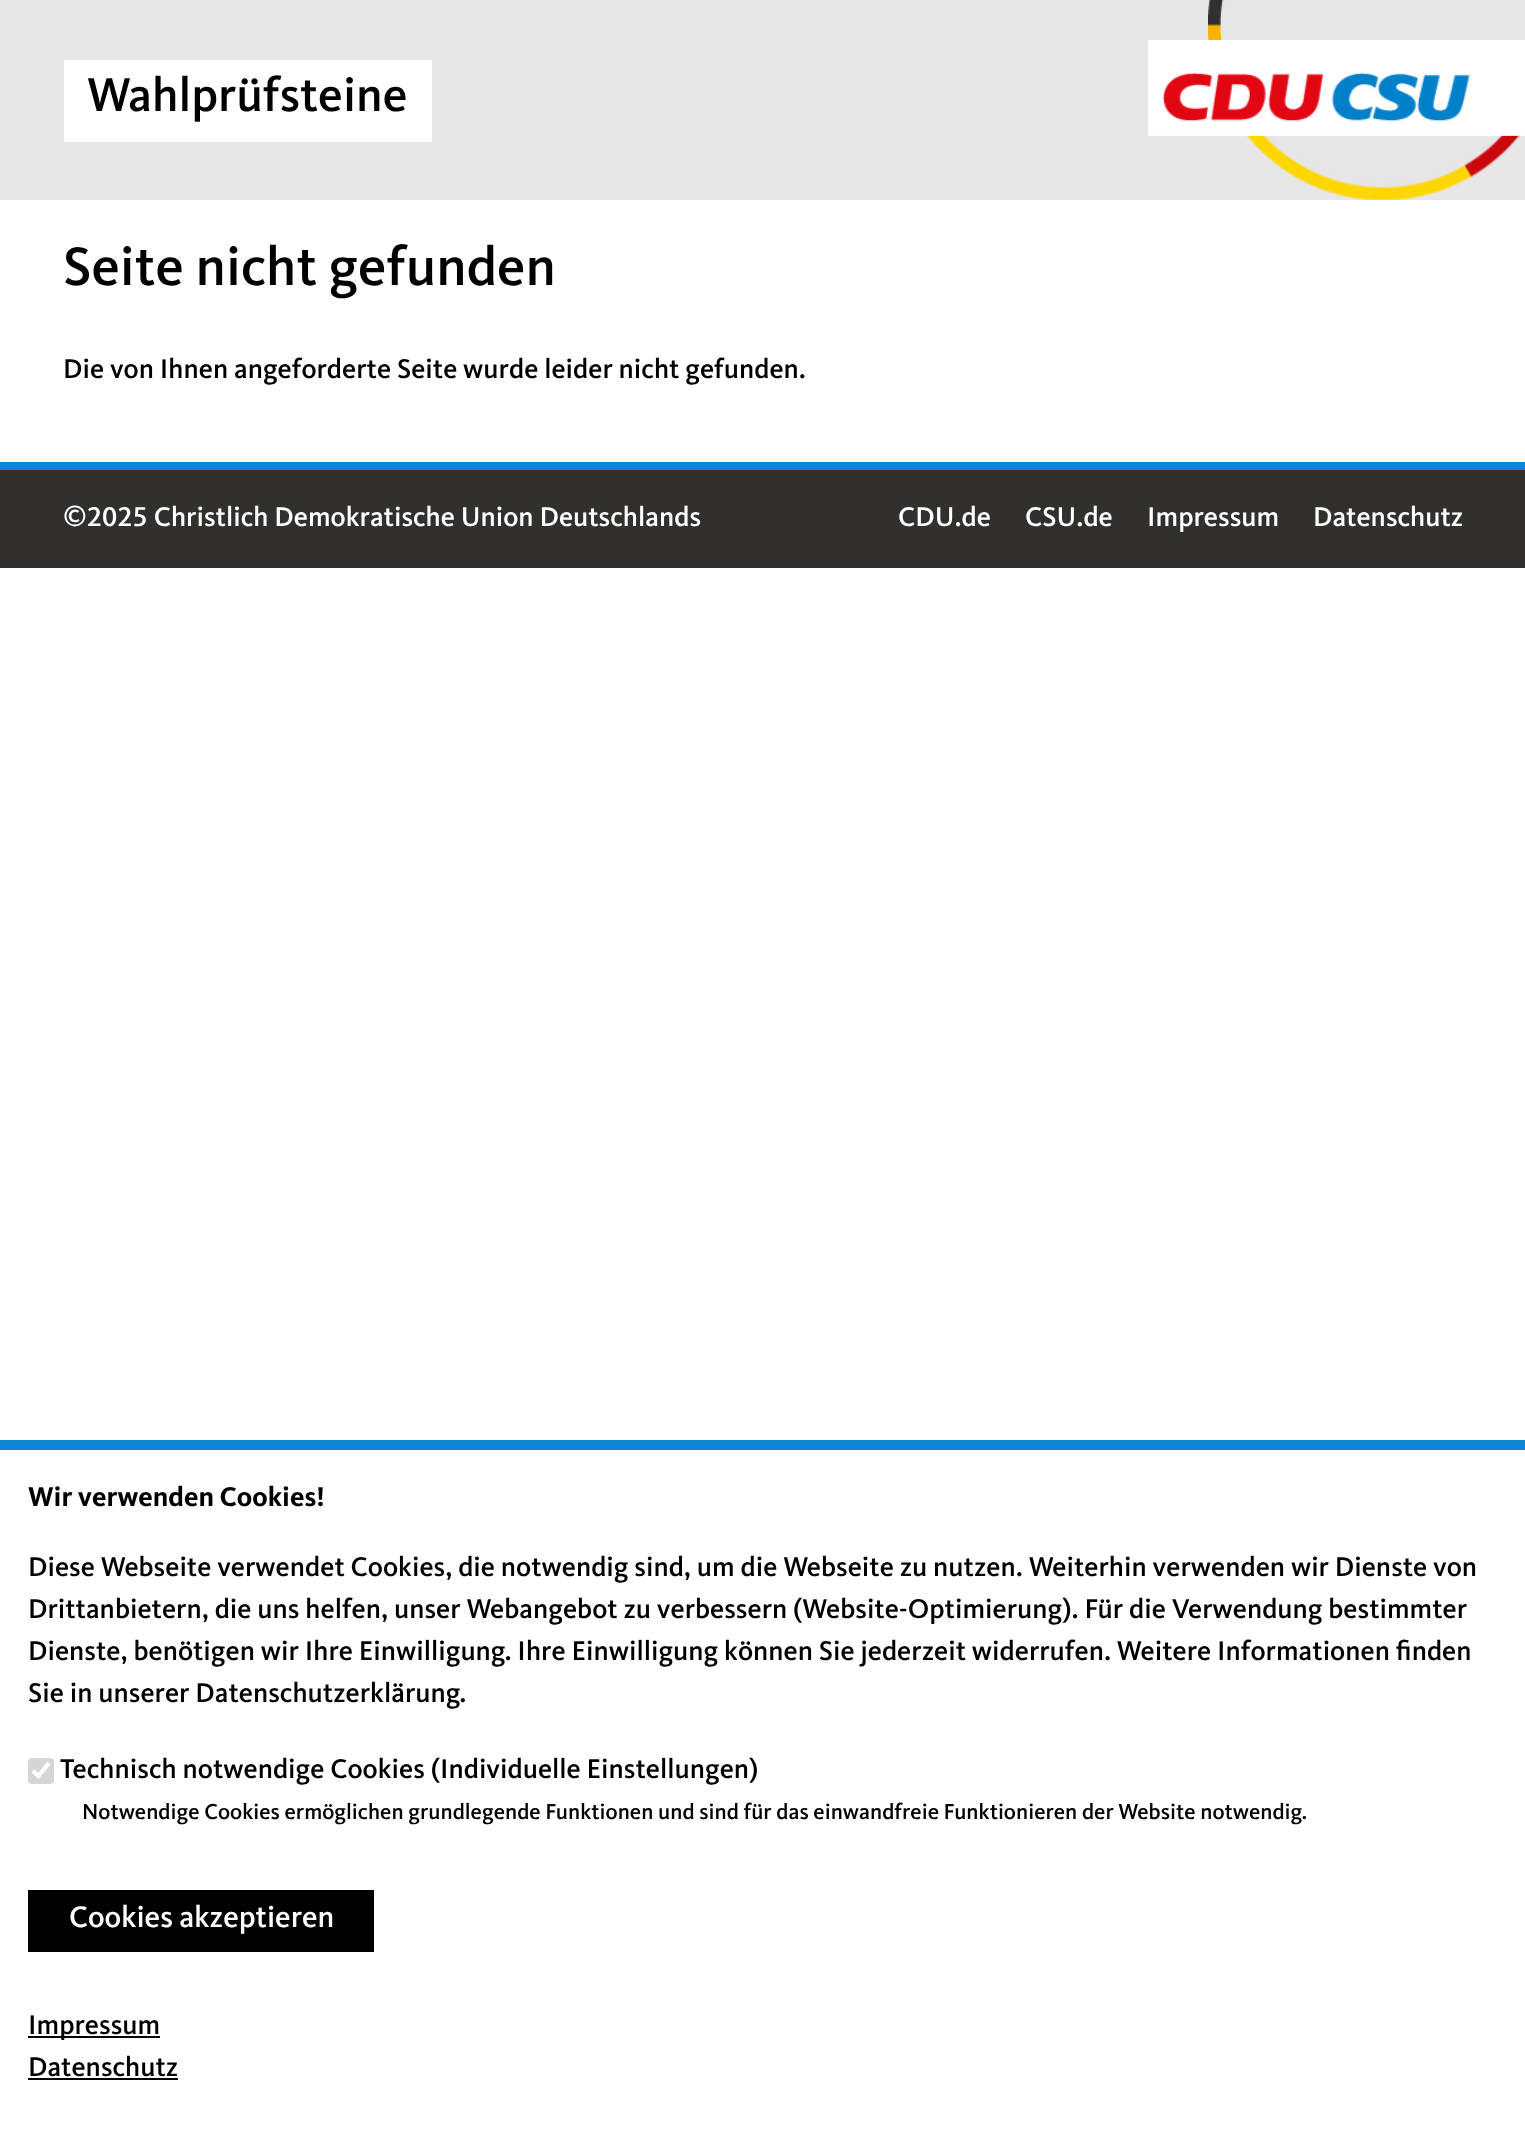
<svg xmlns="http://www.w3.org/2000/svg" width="1525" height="2145">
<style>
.a{font:500 49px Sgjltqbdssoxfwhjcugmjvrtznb;fill:#000}
.b{font:500 56px Sgjltqbdssoxfwhjcugmjvrtznb;fill:#000}
.c{font:500 28px Sgjltqbdssoxfwhjcugmjvrtznb;fill:#000}
.d{font:500 28px Sgjltqbdssoxfwhjcugmjvrtznb;fill:#fff}
.e{font:bold 28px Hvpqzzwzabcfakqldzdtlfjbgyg;fill:#000}
.f{font:500 22.4px Sgjltqbdssoxfwhjcugmjvrtznb;fill:#000}
.g{font:500 30.75px Sgjltqbdssoxfwhjcugmjvrtznb;fill:#fff}
</style>
<rect width="100%" height="100%" fill="#fff"/>
<path fill="#e7e7e7" d="M0 0h1525v200H0z"/>
<path fill="#fff" d="M64 60h368v82H64z"/>
<image href="1.png" x="1208" y="0" width="313" height="200"/>
<image href="2.png" x="1147" y="40" width="378" height="96"/>
<path fill="#32302e" d="M0 470h1525v98H0z"/>
<path fill="#0c87d4" d="M0 462h1525v8H0z"/>
<path fill="#0c87d4" d="M0 1440h1525v10H0z"/>
<rect fill="#d6d6d6" x="28" y="1758" width="26" height="26" rx="4"/>
<path fill="none" stroke="#fff" stroke-width="4.2" d="M33 1771l5.5 5l10.5-13"/>
<path fill="#000" d="M28 1890h346v62H28z"/>
<path fill="#000" d="M28 2036h132v2H28z"/>
<path fill="#000" d="M28 2078h150v2H28z"/>
<text class="a" x="87" y="111">Wahlprüfsteine</text>
<text class="b" x="63" y="285">Seite nicht gefunden</text>
<text class="c" x="63" y="378">Die von Ihnen angeforderte Seite wurde leider nicht gefunden.</text>
<text class="d" x="63" y="526">©2025 Christlich Demokratische Union Deutschlands</text>
<text class="d" x="898" y="526">CDU.de</text>
<text class="d" x="1025" y="526">CSU.de</text>
<text class="d" x="1147" y="526">Impressum</text>
<text class="d" x="1313" y="526">Datenschutz</text>
<text class="e" x="28" y="1506">Wir verwenden Cookies!</text>
<text class="c" x="28" y="1576">Diese Webseite verwendet Cookies, die notwendig sind, um die Webseite zu nutzen. Weiterhin verwenden wir Dienste von</text>
<text class="c" x="28" y="1618">Drittanbietern, die uns helfen, unser Webangebot zu verbessern (Website-Optimierung). Für die Verwendung bestimmter</text>
<text class="c" x="28" y="1660">Dienste, benötigen wir Ihre Einwilligung. Ihre Einwilligung können Sie jederzeit widerrufen. Weitere Informationen finden</text>
<text class="c" x="28" y="1702">Sie in unserer Datenschutzerklärung.</text>
<text class="c" x="60" y="1778">Technisch notwendige Cookies (Individuelle Einstellungen)</text>
<text class="f" x="82" y="1819">Notwendige Cookies ermöglichen grundlegende Funktionen und sind für das einwandfreie Funktionieren der Website notwendig.</text>
<text class="g" x="69" y="1927">Cookies akzeptieren</text>
<text class="c" x="28" y="2034">Impressum</text>
<text class="c" x="28" y="2076">Datenschutz</text>
</svg>
